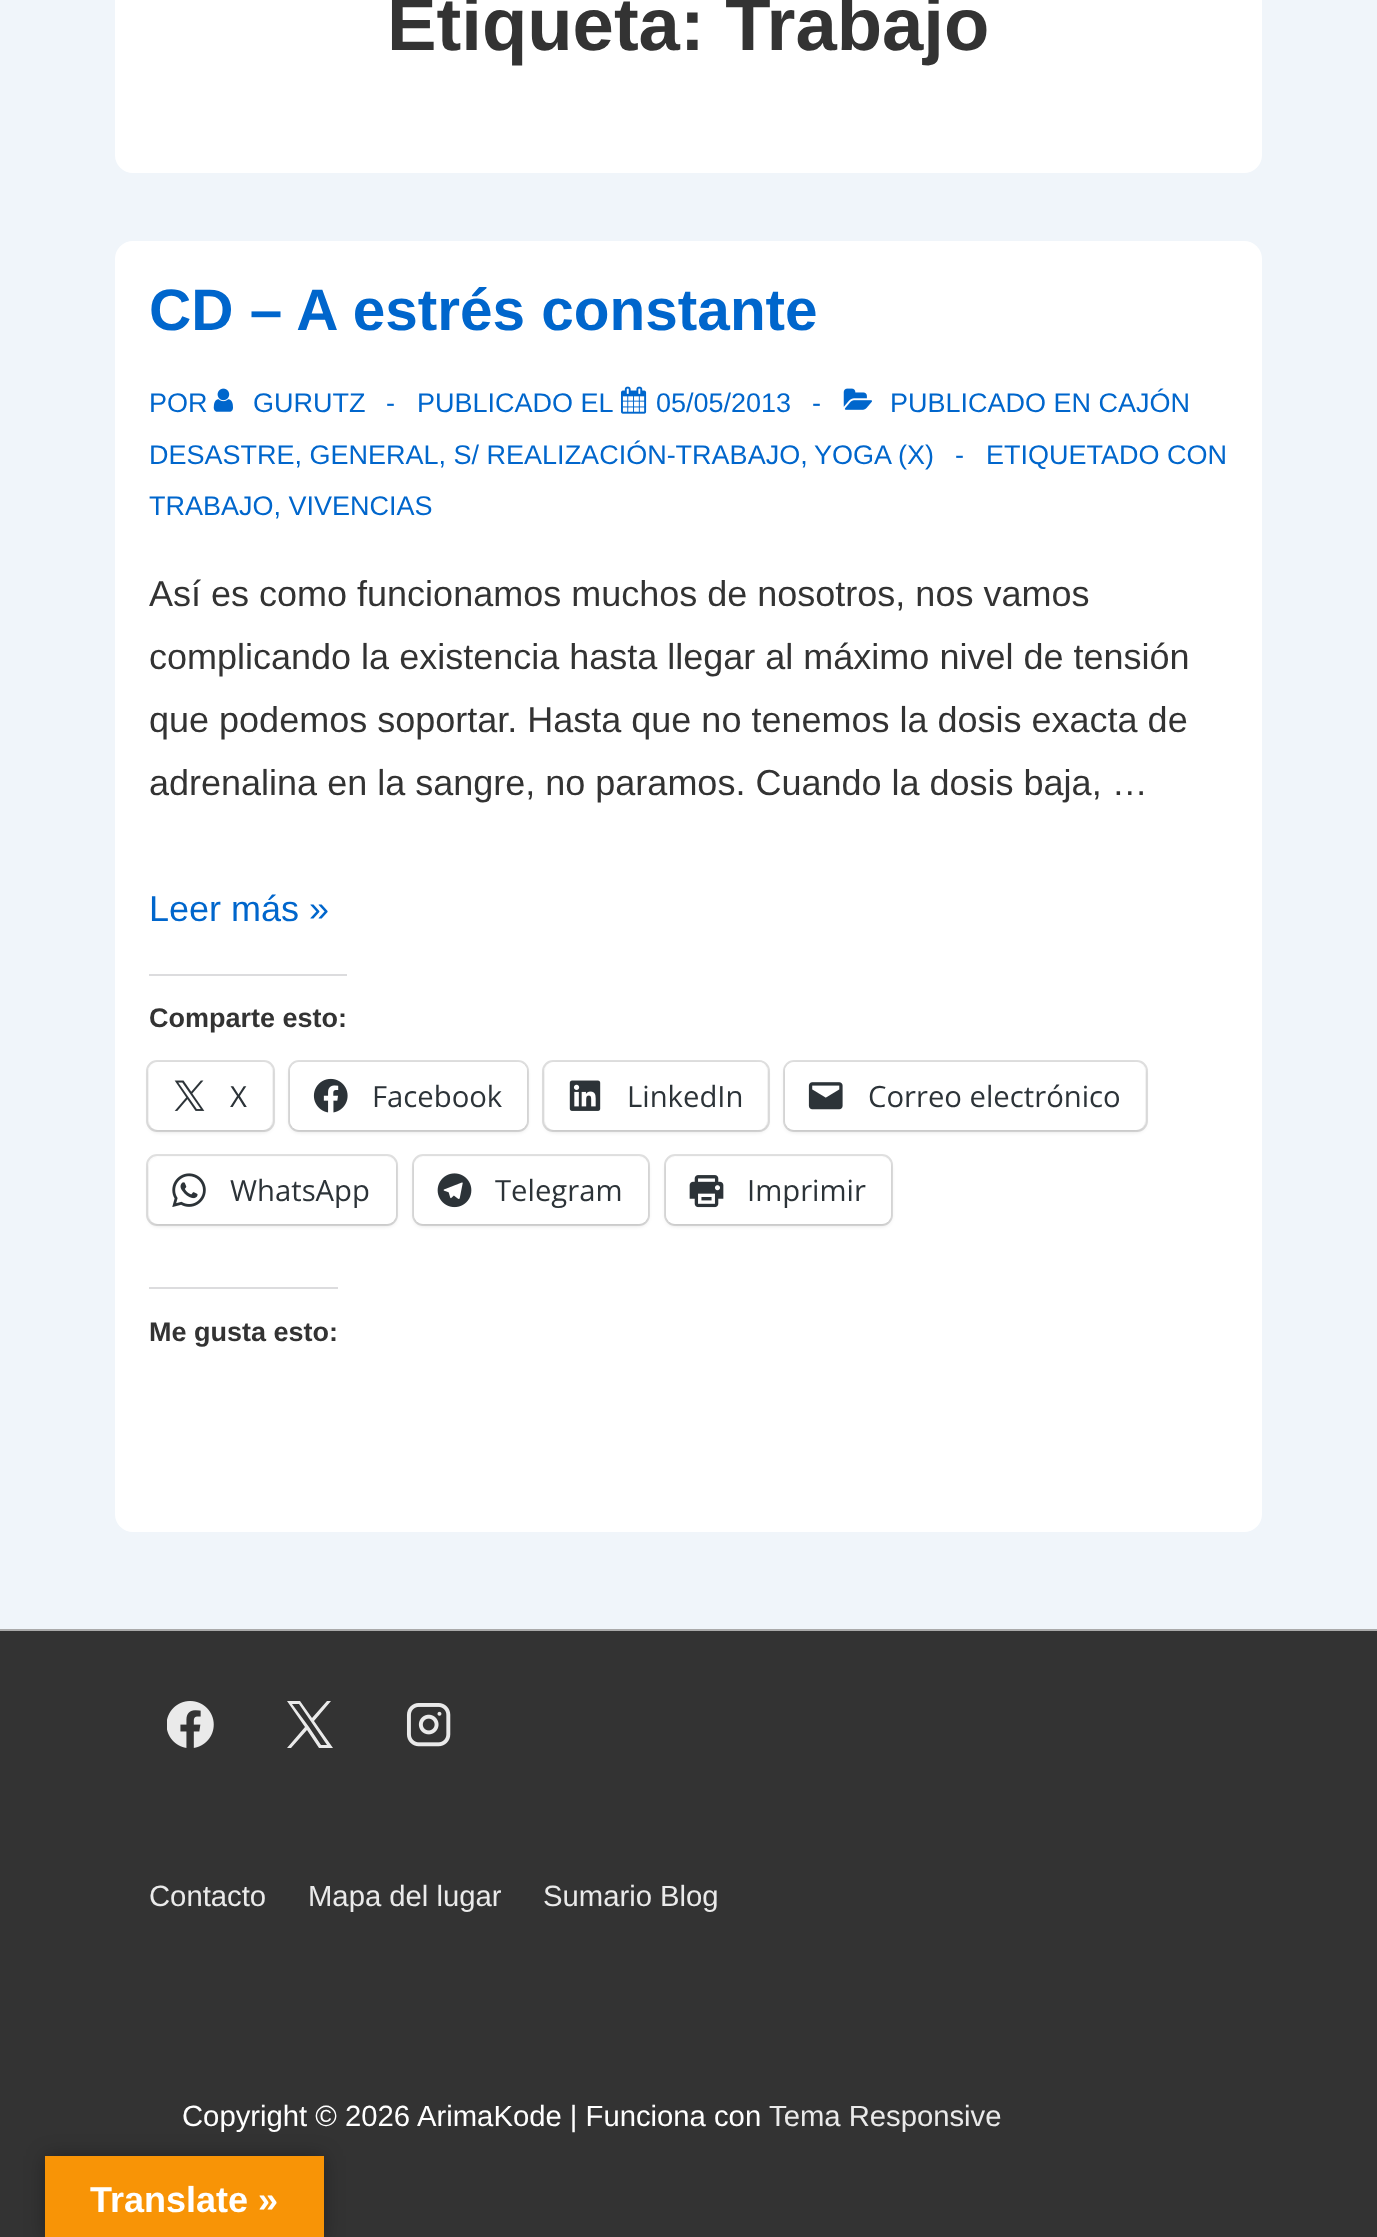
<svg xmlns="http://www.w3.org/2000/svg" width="1377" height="2237">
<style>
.a{font:bold 74.25px Liberation Sans;fill:#333}
.b{font:bold 58.5px Liberation Sans;fill:#06c}
.c{font:27px Liberation Sans;fill:#06c}
.d{font:36px Liberation Sans;fill:#333}
.e{font:36px Liberation Sans;fill:#06c}
.f{font:bold 27px Liberation Sans;fill:#333}
.g{font:29.25px Open Sans;fill:#2c3338}
.h{font:29.25px Liberation Sans;fill:#eaeaea}
.i{font:29.25px Liberation Sans;fill:#fff}
.j{font:bold 36px Liberation Sans;fill:#fff}
</style>
<rect width="100%" height="100%" fill="#f0f5fa"/>
<rect fill="#fff" x="115" y="-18" width="1147" height="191" rx="18"/>
<rect fill="#fff" x="115" y="241" width="1147" height="1291" rx="18"/>
<image href="1.png" x="213" y="388" width="20" height="24"/>
<image href="2.png" x="621" y="386" width="26" height="28"/>
<image href="3.png" x="843" y="388" width="29" height="22"/>
<path fill="#dcdcde" d="M149 974h198v2H149z"/>
<rect fill="none" stroke="#e0e0e0" stroke-width="2" x="147" y="1061" width="127" height="70" rx="10"/>
<rect fill="#0000001f" filter="blur(2px)" x="149" y="1064" width="123" height="68" rx="9"/>
<rect fill="#fff" x="149" y="1062" width="123" height="68" rx="9"/>
<image href="4.png" x="174" y="1080" width="31" height="31"/>
<rect fill="none" stroke="#e0e0e0" stroke-width="2" x="289" y="1061" width="239" height="70" rx="10"/>
<rect fill="#0000001f" filter="blur(2px)" x="290" y="1064" width="237" height="68" rx="9"/>
<rect fill="#fff" x="290" y="1062" width="237" height="68" rx="9"/>
<image href="5.png" x="313" y="1078" width="35" height="35"/>
<rect fill="none" stroke="#e0e0e0" stroke-width="2" x="543" y="1061" width="226" height="70" rx="10"/>
<rect fill="#0000001f" filter="blur(2px)" x="545" y="1064" width="222" height="68" rx="9"/>
<rect fill="#fff" x="545" y="1062" width="222" height="68" rx="9"/>
<image href="6.png" x="569" y="1080" width="32" height="31"/>
<rect fill="none" stroke="#e0e0e0" stroke-width="2" x="784" y="1061" width="363" height="70" rx="10"/>
<rect fill="#0000001f" filter="blur(2px)" x="785" y="1064" width="360" height="68" rx="9"/>
<rect fill="#fff" x="785" y="1062" width="360" height="68" rx="9"/>
<image href="7.png" x="808" y="1082" width="35" height="28"/>
<rect fill="none" stroke="#e0e0e0" stroke-width="2" x="147" y="1155" width="250" height="70" rx="10"/>
<rect fill="#0000001f" filter="blur(2px)" x="149" y="1159" width="247" height="67" rx="9"/>
<rect fill="#fff" x="149" y="1157" width="247" height="67" rx="9"/>
<image href="8.png" x="172" y="1173" width="34" height="34"/>
<rect fill="none" stroke="#e0e0e0" stroke-width="2" x="413" y="1155" width="236" height="70" rx="10"/>
<rect fill="#0000001f" filter="blur(2px)" x="414" y="1159" width="234" height="67" rx="9"/>
<rect fill="#fff" x="414" y="1157" width="234" height="67" rx="9"/>
<image href="9.png" x="437" y="1173" width="35" height="35"/>
<rect fill="none" stroke="#e0e0e0" stroke-width="2" x="665" y="1155" width="227" height="70" rx="10"/>
<rect fill="#0000001f" filter="blur(2px)" x="666" y="1159" width="225" height="67" rx="9"/>
<rect fill="#fff" x="666" y="1157" width="225" height="67" rx="9"/>
<image href="10.png" x="689" y="1175" width="35" height="33"/>
<path fill="#dcdcde" d="M149 1287h189v2H149z"/>
<path fill="#333" d="M0 1631h1377v606H0z"/>
<path fill="#aaa" d="M0 1629h1377v2H0z"/>
<image href="11.png" x="167" y="1701" width="47" height="47"/>
<path fill="#eaeaea" d="M314 1721l17-20h-4l-15 17l-12-17h-13l18 26l-18 21h4l16-18l12 18h14zm-5 6l-17-23h7l28 41h-6z"/>
<image href="12.png" x="406" y="1703" width="45" height="44"/>
<path fill="#0000004d" filter="blur(10px)" d="M45 2156h279v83H45z"/>
<path fill="#f89406" d="M45 2156h279v81H45z"/>
<text class="a" x="387" y="50">Etiqueta: Trabajo</text>
<text class="b" x="149" y="330">CD – A estrés constante</text>
<text class="c" x="149" y="412">POR</text>
<text class="c" x="253" y="412">GURUTZ</text>
<text class="c" x="386" y="412">-</text>
<text class="c" x="417" y="412">PUBLICADO EL</text>
<text class="c" x="656" y="412">05/05/2013</text>
<text class="c" x="812" y="412">-</text>
<text class="c" x="890" y="412">PUBLICADO EN CAJÓN</text>
<text class="c" x="149" y="464">DESASTRE, GENERAL, S/ REALIZACIÓN-TRABAJO,</text>
<text class="c" x="814" y="464">YOGA (X)</text>
<text class="c" x="955" y="464">-</text>
<text class="c" x="986" y="464">ETIQUETADO CON</text>
<text class="c" x="149" y="515">TRABAJO, VIVENCIAS</text>
<text class="d" x="149" y="606">Así es como funcionamos muchos de nosotros, nos vamos</text>
<text class="d" x="149" y="669">complicando la existencia hasta llegar al máximo nivel de tensión</text>
<text class="d" x="149" y="732">que podemos soportar. Hasta que no tenemos la dosis exacta de</text>
<text class="d" x="149" y="795">adrenalina en la sangre, no paramos. Cuando la dosis baja, …</text>
<text class="e" x="149" y="921">Leer más »</text>
<text class="f" x="149" y="1027">Comparte esto:</text>
<text class="g" x="230" y="1107">X</text>
<text class="g" x="372" y="1107">Facebook</text>
<text class="g" x="627" y="1107">LinkedIn</text>
<text class="g" x="868" y="1107">Correo electrónico</text>
<text class="g" x="230" y="1201">WhatsApp</text>
<text class="g" x="495" y="1201">Telegram</text>
<text class="g" x="747" y="1201">Imprimir</text>
<text class="f" x="149" y="1341">Me gusta esto:</text>
<text class="h" x="149" y="1906">Contacto</text>
<text class="h" x="308" y="1906">Mapa del lugar</text>
<text class="h" x="543" y="1906">Sumario Blog</text>
<text class="i" x="182" y="2126">Copyright © 2026</text>
<text class="i" x="417" y="2126">ArimaKode | Funciona con</text>
<text class="h" x="769" y="2126">Tema Responsive</text>
<text class="j" x="90" y="2212">Translate »</text>
</svg>
